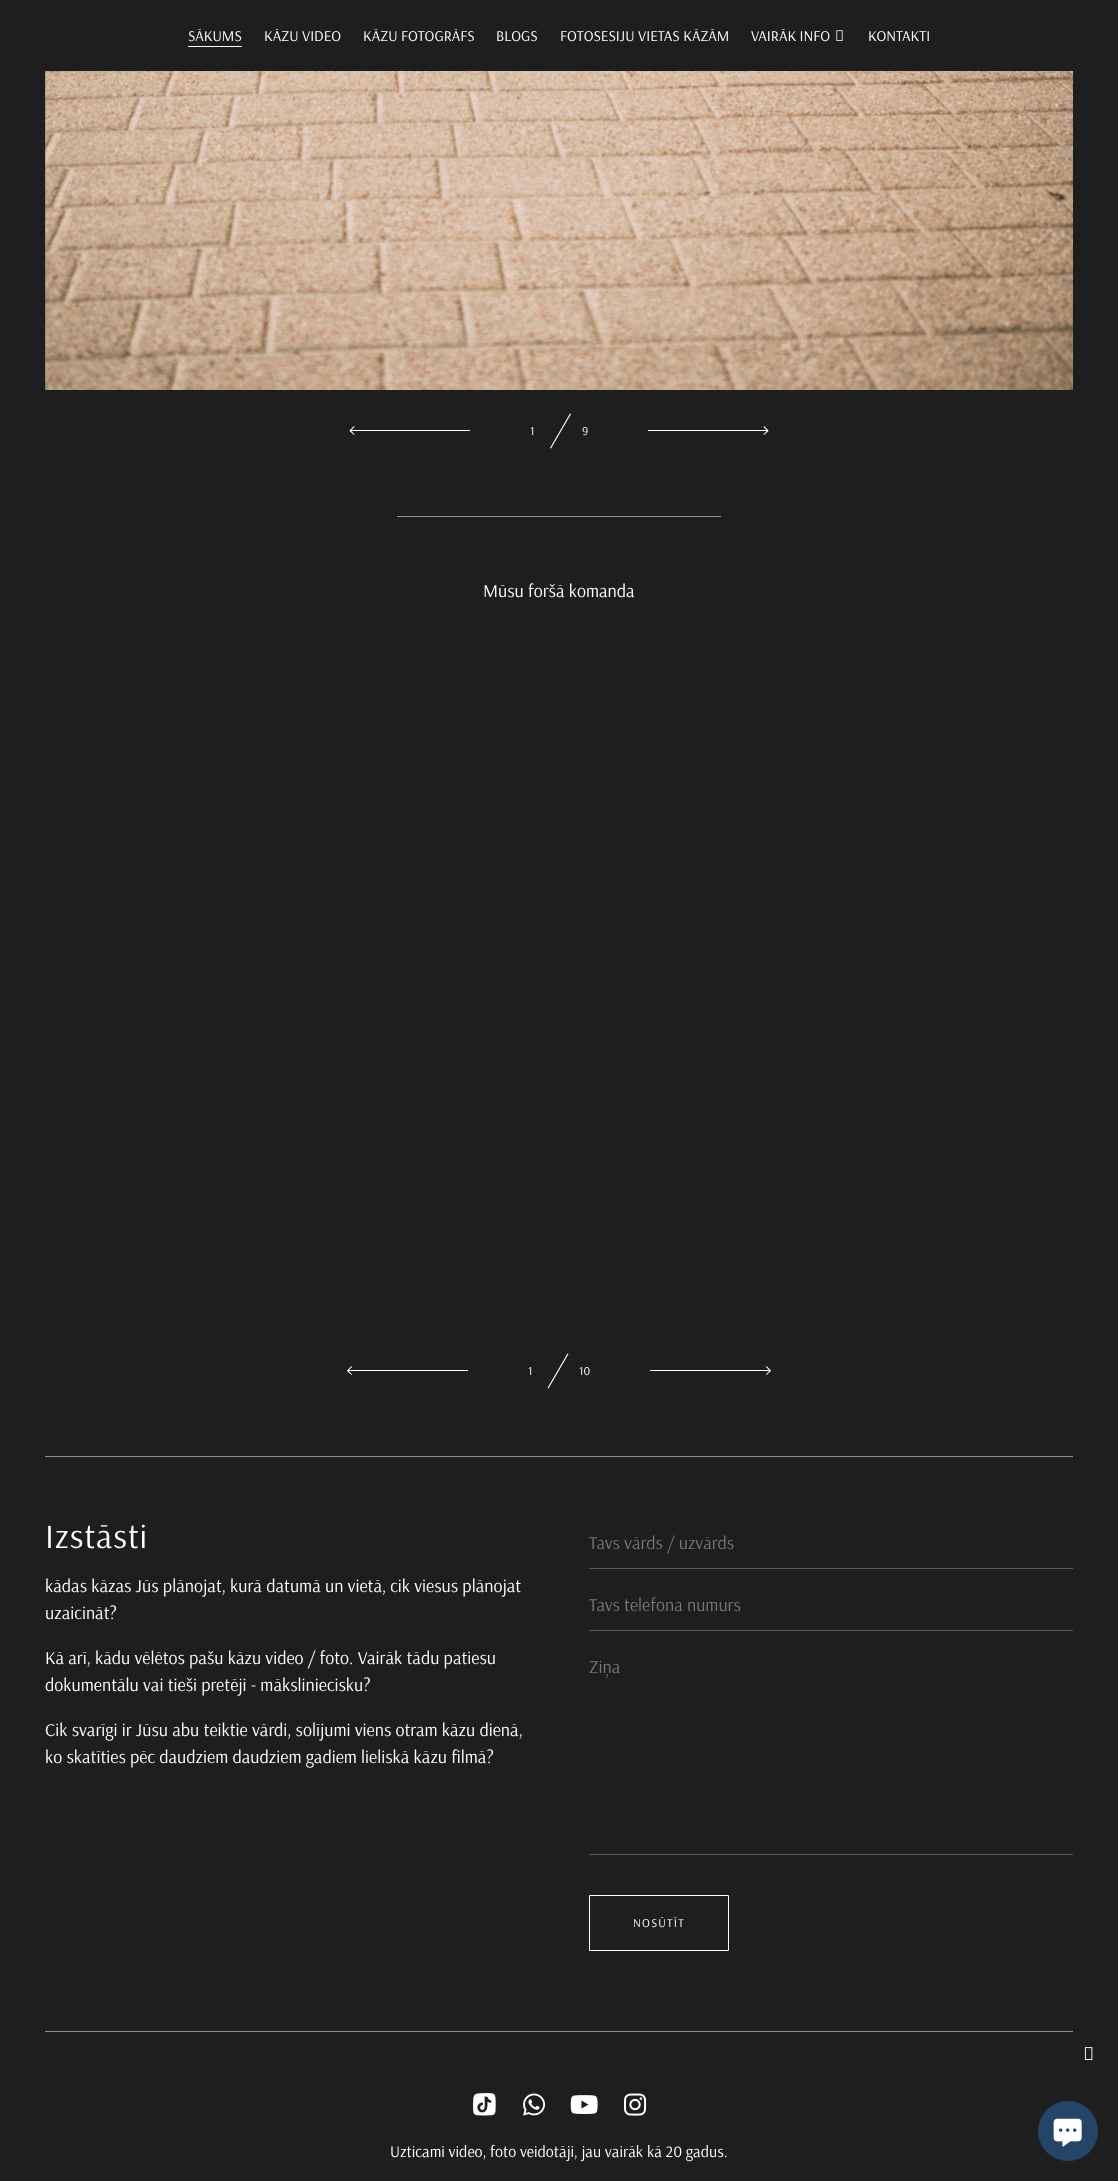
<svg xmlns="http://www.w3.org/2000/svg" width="1118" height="2181">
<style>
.a{font:15px Arsenal;fill:#fff}
.b{font:12px Arsenal;fill:#fff}
.c{font:18px Arsenal;fill:#fff}
.d{font:34px Arsenal;letter-spacing:0.75px;fill:#fff}
.e{font:18px Arsenal;fill:#787878}
.f{font:12px Arsenal;letter-spacing:1.25px;fill:#fff}
.g{font:16px Arsenal;fill:#fff}
</style>
<rect width="100%" height="100%" fill="#1e1e1e"/>
<path fill="#fff" d="M188 46h54v1H188z"/>
<image href="1.png" x="836" y="30" width="7" height="11"/>
<image href="2.png" x="45" y="71" width="1028" height="319"/>
<path fill="#fff" d="M350 430h120v1H350z"/>
<path fill="#fff" d="M350.5 430l4 4.5l-.5 .5l-4.5-4z"/>
<path fill="#fff" d="M349.5 430.5l4.5-4.5l.5 1l-4 4z"/>
<path fill="#fff" d="M570 413.5l1 .5l-20 34.5l-1-.5z"/>
<path fill="#fff" d="M648 430h120v1H648z"/>
<path fill="#fff" d="M763.5 434.5l4-4.5l1 1l-4.5 4z"/>
<path fill="#fff" d="M764 426l4.5 4.5l-1 .5l-4-4z"/>
<path fill="#8f8f8f" d="M397 516h324v1H397z"/>
<path fill="#fff" d="M348 1370h120v1H348z"/>
<path fill="#fff" d="M348 1370l4 4.5l-.5 .5l-4.5-4z"/>
<path fill="#fff" d="M347 1370.5l4.5-4.5l.5 1l-4 4z"/>
<path fill="#fff" d="M567.5 1353.5l1 .5l-20 34.5l-1-.5z"/>
<path fill="#fff" d="M650 1370h120v1H650z"/>
<path fill="#fff" d="M766 1374.5l4-4.5l1 1l-4.5 4z"/>
<path fill="#fff" d="M766.5 1366l4.5 4.5l-1 .5l-4-4z"/>
<path fill="#8f8f8f" d="M45 1456h1028v1H45z"/>
<path fill="#565656" d="M589 1568h484v1H589z"/>
<path fill="#565656" d="M589 1630h484v1H589z"/>
<path fill="#565656" d="M589 1854h484v1H589z"/>
<path fill="none" stroke="#fff" d="M589.5 1895.5h139v55H589.5z"/>
<path fill="#8f8f8f" d="M45 2031h1028v1H45z"/>
<image href="3.png" x="1084" y="2047" width="9" height="13"/>
<image href="4.png" x="473" y="2093" width="23" height="23"/>
<image href="5.png" x="523" y="2093" width="23" height="23"/>
<image href="6.png" x="570" y="2095" width="28" height="19"/>
<image href="7.png" x="624" y="2093" width="23" height="23"/>
<circle fill="#254568" cx="1068" cy="2131" r="30"/>
<image href="8.png" x="1053" y="2118" width="29" height="29"/>
<text class="a" x="188" y="41">SĀKUMS</text>
<text class="a" x="264" y="41">KĀZU VIDEO</text>
<text class="a" x="363" y="41">KĀZU FOTOGRĀFS</text>
<text class="a" x="496" y="41">BLOGS</text>
<text class="a" x="560" y="41">FOTOSESIJU VIETAS KĀZĀM</text>
<text class="a" x="751" y="41">VAIRĀK INFO</text>
<text class="a" x="868" y="41">KONTAKTI</text>
<text class="b" x="530" y="435">1</text>
<text class="b" x="582" y="435">9</text>
<text class="c" x="483" y="597">Mūsu foršā komanda</text>
<text class="b" x="528" y="1375">1</text>
<text class="b" x="579" y="1375">10</text>
<text class="d" x="45" y="1548">Izstāsti</text>
<text class="c" x="45" y="1592">kādas kāzas Jūs plānojat, kurā datumā un vietā, cik viesus plānojat</text>
<text class="c" x="45" y="1619">uzaicināt?</text>
<text class="c" x="45" y="1664">Kā arī, kādu vēlētos pašu kāzu video / foto. Vairāk tādu patiesu</text>
<text class="c" x="45" y="1691">dokumentālu vai tieši pretēji - māksliniecisku?</text>
<text class="c" x="45" y="1736">Cik svarīgi ir Jūsu abu teiktie vārdi, solījumi viens otram kāzu dienā,</text>
<text class="c" x="45" y="1763">ko skatīties pēc daudziem daudziem gadiem lieliskā kāzu filmā?</text>
<text class="e" x="589" y="1549">Tavs vārds / uzvārds</text>
<text class="e" x="589" y="1611">Tavs telefona numurs</text>
<text class="e" x="589" y="1673">Ziņa</text>
<text class="f" x="633" y="1927">NOSŪTĪT</text>
<text class="g" x="390" y="2157">Uzticami video, foto veidotāji, jau vairāk kā 20 gadus.</text>
</svg>
